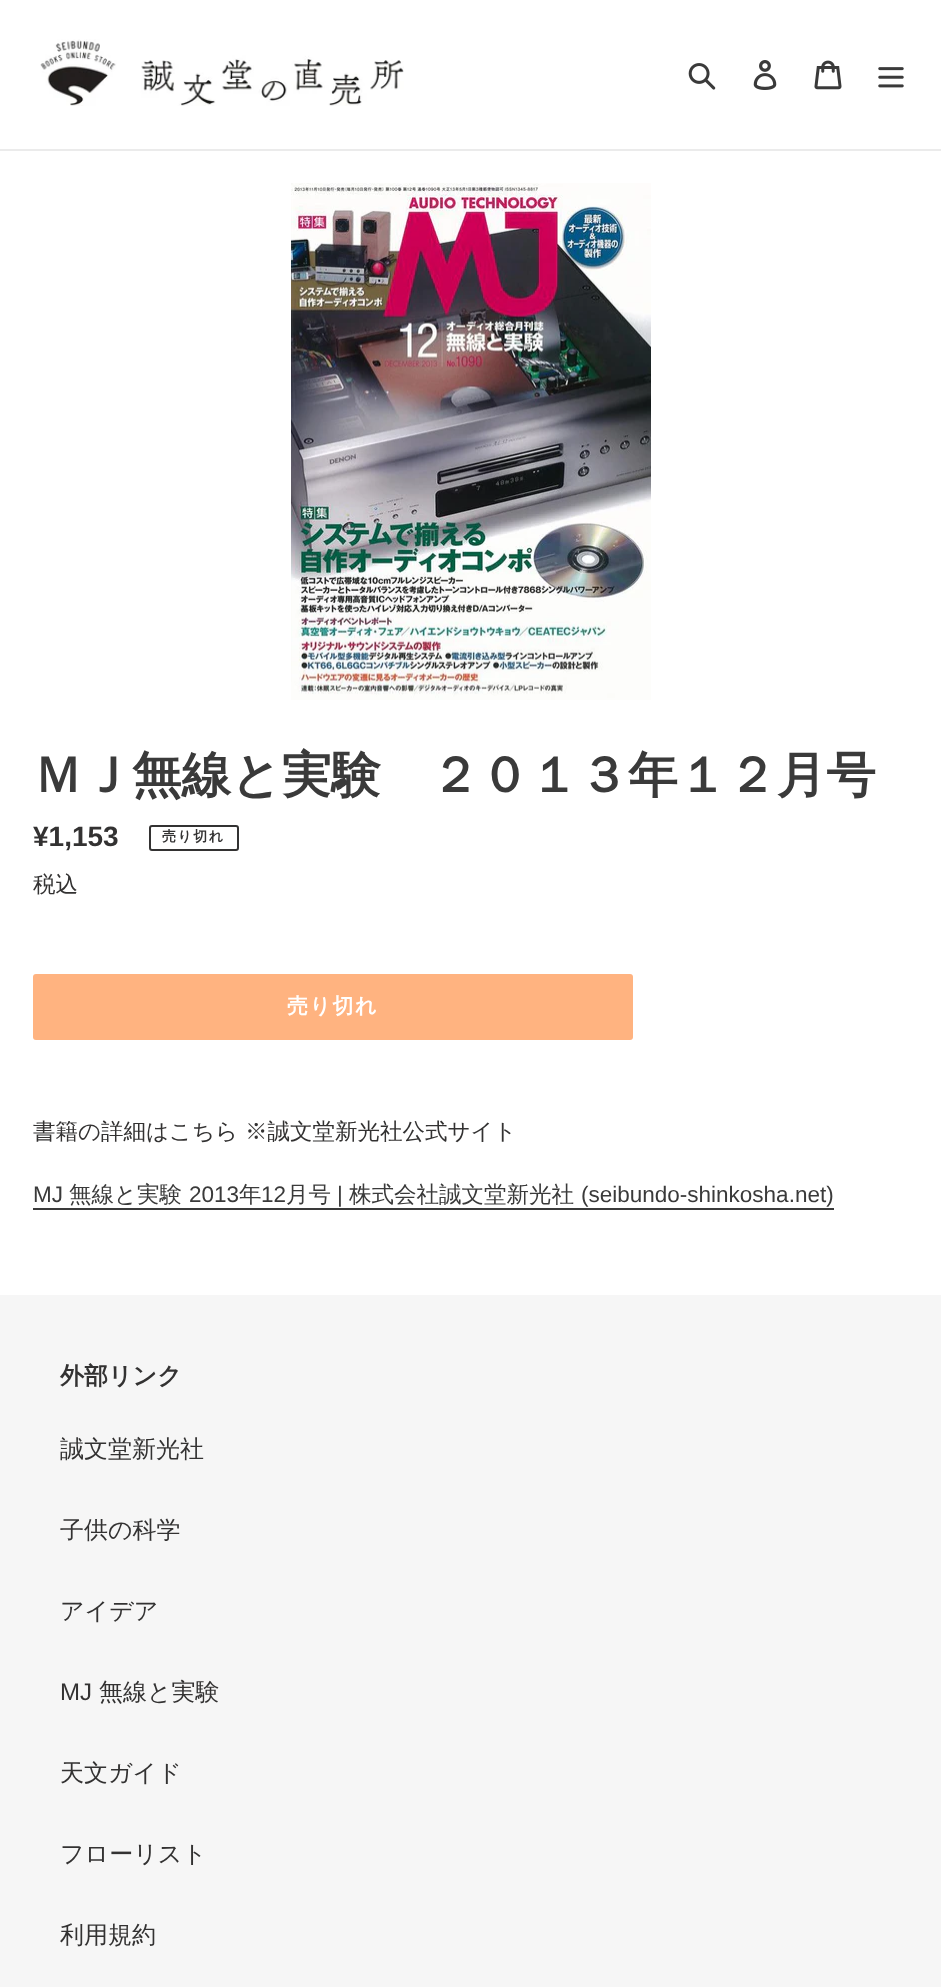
<svg xmlns="http://www.w3.org/2000/svg" width="941" height="1987">
<style>
.a{font:bold 49.5px WenQuanYi Zen Hei;fill:#3a3a3a}
.b{font:bold 28px Liberation Sans;fill:#333232}
.c{font:bold 14px WenQuanYi Zen Hei;letter-spacing:1.5px;fill:#333232}
.d{font:500 22.5px WenQuanYi Zen Hei;fill:#333232}
.e{font:bold 21px WenQuanYi Zen Hei;letter-spacing:1.5px;fill:#fff}
.f{font:22.5px Liberation Sans;fill:#3a3a3a}
.g{font:500 22.5px WenQuanYi Zen Hei;fill:#3a3a3a}
.h{font:bold 24px WenQuanYi Zen Hei;fill:#333232}
.i{font:500 24px WenQuanYi Zen Hei;fill:#333232}
.j{font:24px Liberation Sans;fill:#333232}
</style>
<rect width="100%" height="100%" fill="#fff"/>
<path fill="#ebebeb" d="M0 149h941v2H0z"/>
<image href="1.png" x="40" y="39" width="364" height="67"/>
<image href="2.png" x="688" y="63" width="28" height="27"/>
<image href="3.png" x="753" y="60" width="24" height="30"/>
<image href="4.png" x="814" y="60" width="28" height="30"/>
<image href="5.png" x="878" y="67" width="26" height="21"/>
<image href="6.png" x="291" y="183" width="360" height="517"/>
<rect fill="none" stroke="#333232" stroke-width="2" x="150" y="826" width="88" height="24" rx="2"/>
<rect fill="#ffb380" x="33" y="974" width="600" height="66" rx="3"/>
<path fill="#3a3a3a" d="M33 1208h801v2H33z"/>
<path fill="#f6f6f6" d="M0 1295h941v692H0z"/>
<text class="a" x="33" y="792">ＭＪ無線と実験　２０１３年１２月号</text>
<text class="b" x="33" y="846">¥1,153</text>
<text class="c" x="162" y="841">売り切れ</text>
<text class="d" x="33" y="892">税込</text>
<text class="e" x="287" y="1013">売り切れ</text>
<text class="d" x="33" y="1139">書籍の詳細はこちら ※誠文堂新光社公式サイト</text>
<text class="f" x="33" y="1202">MJ</text>
<text class="g" x="69" y="1202">無線と実験</text>
<text class="f" x="189" y="1202">2013</text>
<text class="g" x="239" y="1202">年</text>
<text class="f" x="261" y="1202">12</text>
<text class="g" x="286" y="1202">月号</text>
<text class="f" x="337" y="1202">|</text>
<text class="g" x="349" y="1202">株式会社誠文堂新光社</text>
<text class="f" x="581" y="1202">(seibundo-shinkosha.net)</text>
<text class="h" x="60" y="1384">外部リンク</text>
<text class="i" x="60" y="1457">誠文堂新光社</text>
<text class="i" x="60" y="1538">子供の科学</text>
<text class="i" x="60" y="1619">アイデア</text>
<text class="j" x="60" y="1700">MJ</text>
<text class="i" x="99" y="1700">無線と実験</text>
<text class="i" x="60" y="1781">天文ガイド</text>
<text class="i" x="60" y="1862">フローリスト</text>
<text class="i" x="60" y="1943">利用規約</text>
</svg>
